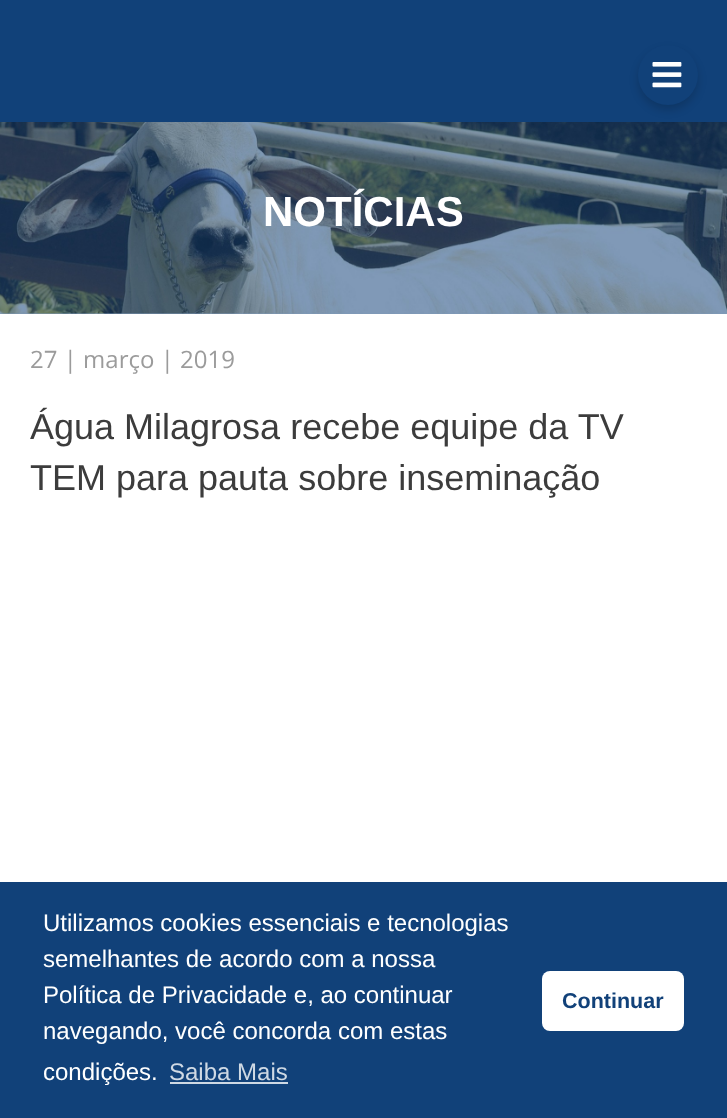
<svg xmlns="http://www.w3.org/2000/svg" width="727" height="1118">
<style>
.a{font:bold 42px Liberation Sans;fill:#fff}
.b{font:24px Open Sans;fill:#9b9b9b}
.c{font:36px Liberation Sans;fill:#3c3c3c}
.d{font:24px Liberation Sans;fill:#fff}
.e{font:24px Liberation Sans;fill:#cfd9e4}
.f{font:bold 21.5px Liberation Sans;fill:#114179}
</style>
<rect width="100%" height="100%" fill="#fff"/>
<path fill="#114179" d="M0 0h727v122H0z"/>
<path fill="#7f99b7" d="M0 313h727v1H0z"/>
<image href="2.png" x="0" y="122" width="727" height="192"/>
<rect fill="#00000029" filter="blur(4.5px)" x="638" y="50" width="60" height="60" rx="30"/>
<circle fill="#114179" cx="668" cy="75" r="30"/>
<image href="1.png" x="652" y="62" width="30" height="26"/>
<path fill="#114179" d="M0 882h727v236H0z"/>
<path fill="#cfd9e4" d="M170 1082h118v2H170z"/>
<rect fill="#fff" x="542" y="971" width="142" height="60" rx="8"/>
<text class="a" x="263" y="226">NOTÍCIAS</text>
<text class="b" x="30" y="368">27 | março | 2019</text>
<text class="c" x="30" y="439">Água Milagrosa recebe equipe da TV</text>
<text class="c" x="30" y="490">TEM para pauta sobre inseminação</text>
<text class="d" x="43" y="931">Utilizamos cookies essenciais e tecnologias</text>
<text class="d" x="43" y="967">semelhantes de acordo com a nossa</text>
<text class="d" x="43" y="1003">Política de Privacidade e, ao continuar</text>
<text class="d" x="43" y="1039">navegando, você concorda com estas</text>
<text class="d" x="43" y="1080">condições.</text>
<text class="e" x="169" y="1080">Saiba Mais</text>
<text class="f" x="562" y="1008">Continuar</text>
</svg>
